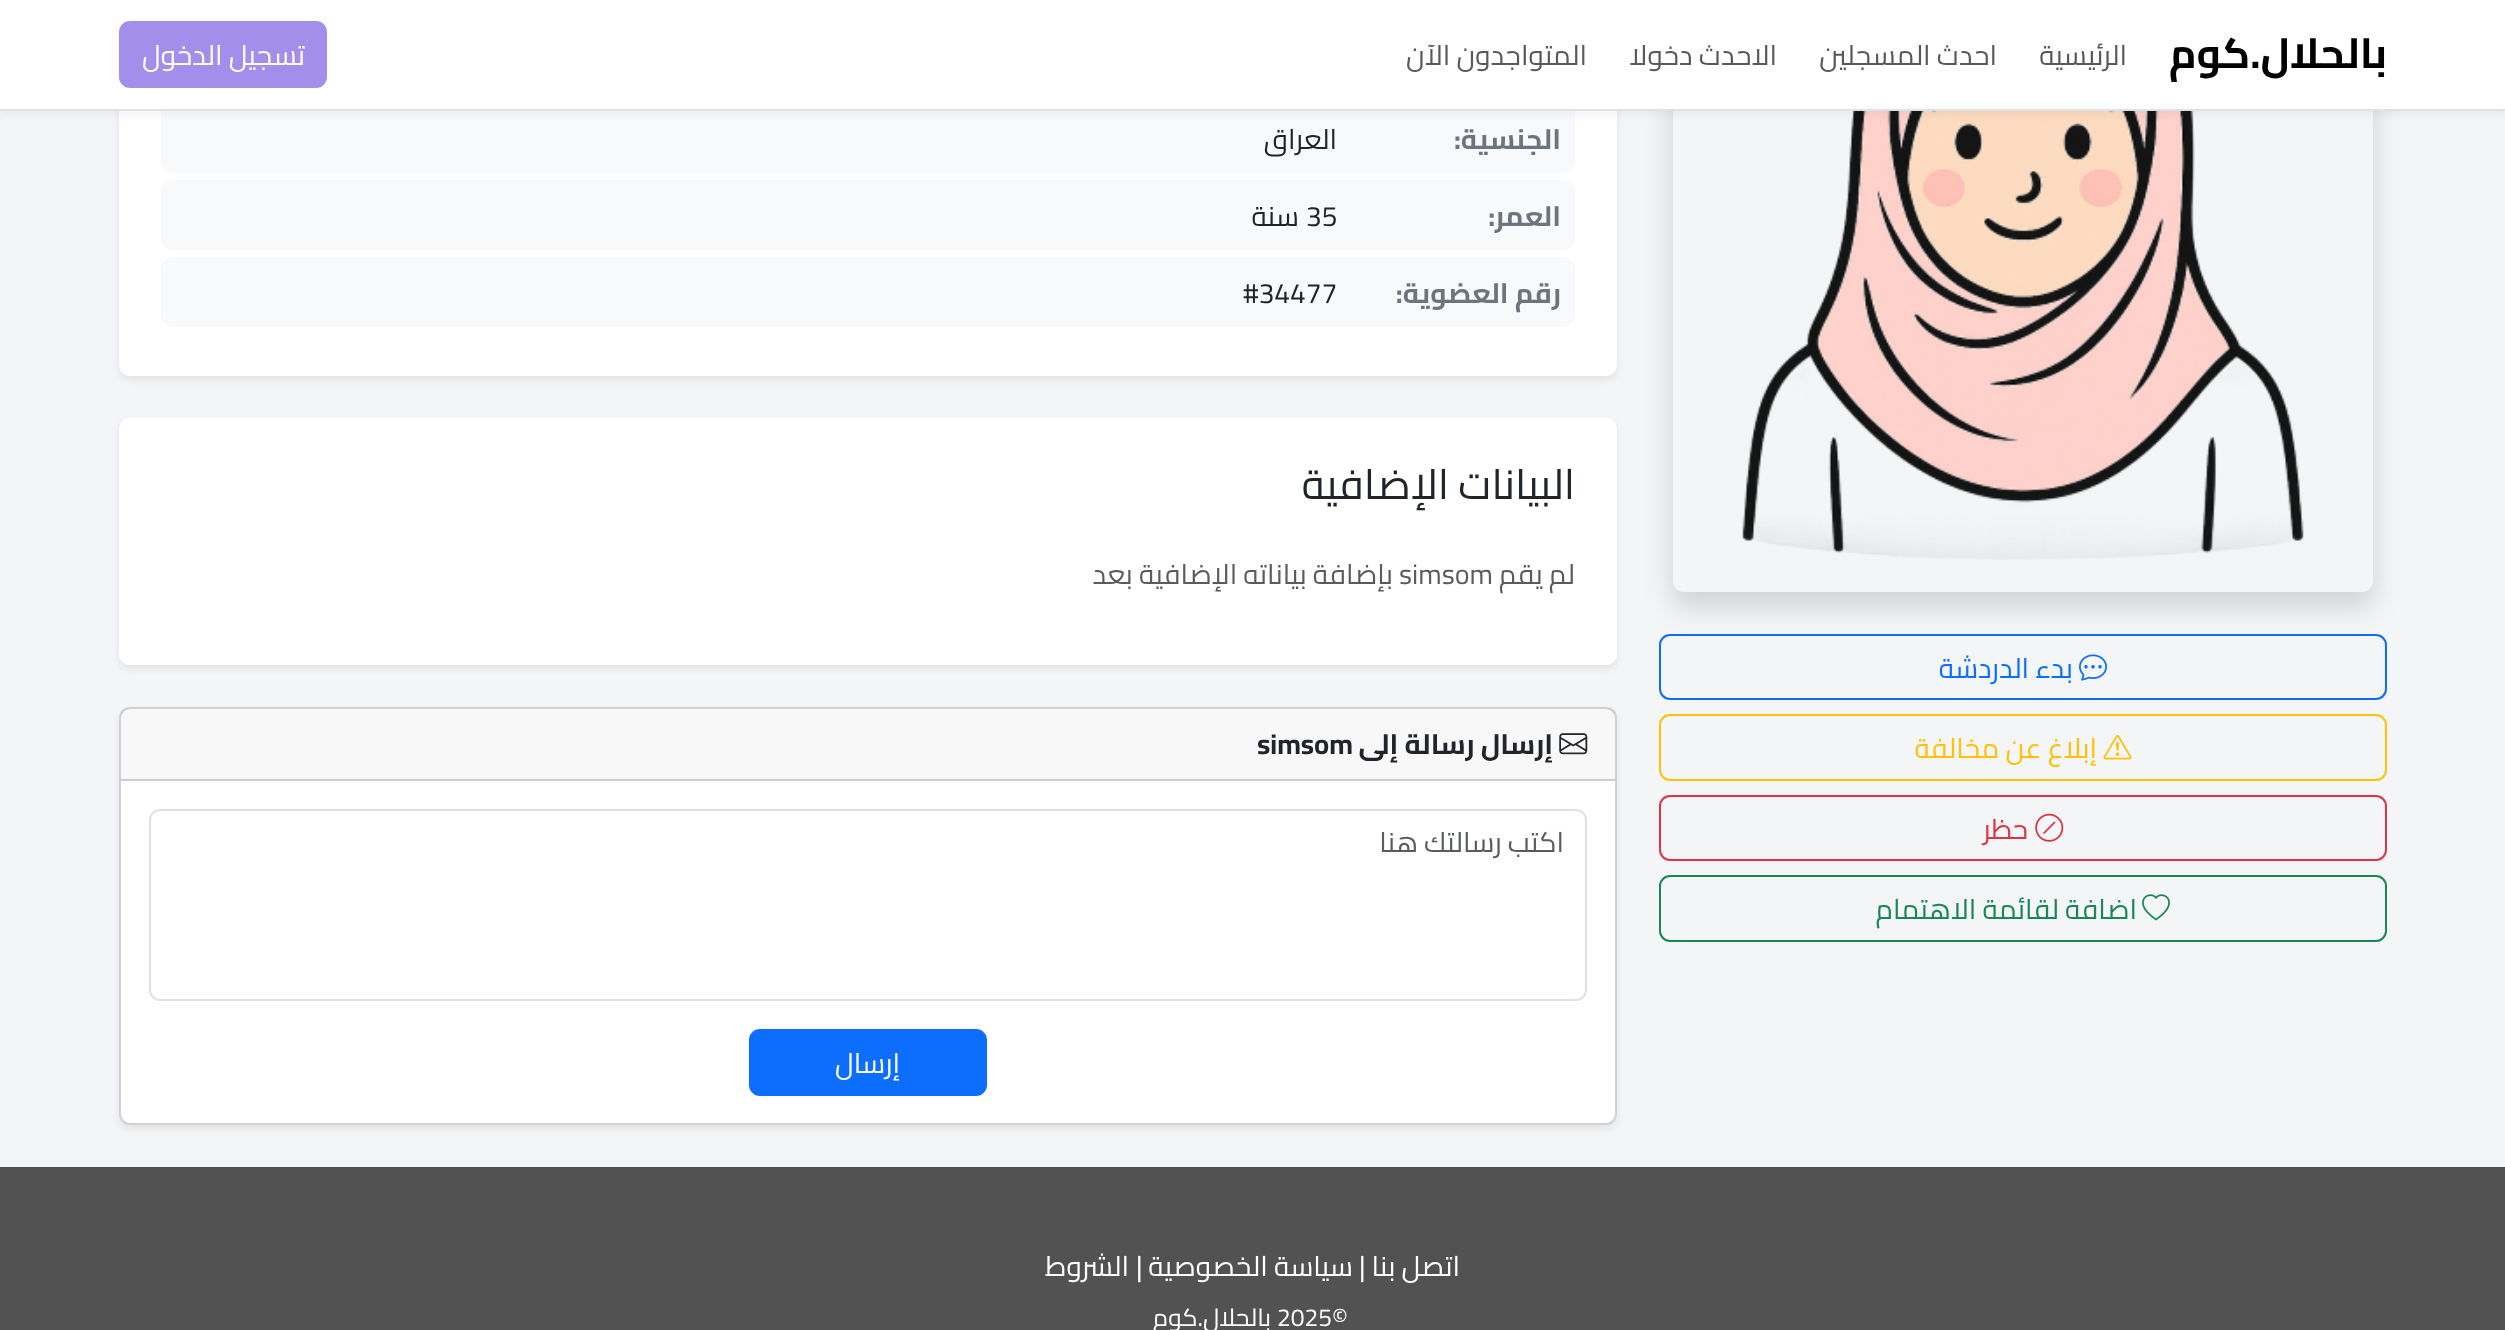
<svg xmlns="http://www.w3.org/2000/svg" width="2505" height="1330">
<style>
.a{font:bold 42px Cairo;direction:rtl;fill:#000}
.b{font:28px Cairo;direction:rtl;fill:#595959}
.c{font:28px Cairo;direction:rtl;fill:#fff}
.d{font:28px Cairo;direction:rtl;fill:#0d6efd}
.e{font:28px Cairo;direction:rtl;fill:#ffc107}
.f{font:28px Cairo;direction:rtl;fill:#dc3545}
.g{font:28px Cairo;direction:rtl;fill:#198754}
.h{font:bold 28px Cairo;direction:rtl;fill:#6c757d}
.i{font:28px Cairo;direction:rtl;fill:#212529}
.j{font:28px Cairo;fill:#212529}
.k{font:42px Cairo;direction:rtl;fill:#212529}
.l{font:28px Cairo;direction:rtl;fill:#595c5f}
.m{font:28px Cairo;fill:#595c5f}
.n{font:bold 28px Cairo;direction:rtl;fill:#212529}
.o{font:bold 28px Cairo;fill:#212529}
.p{font:28px Cairo;fill:#fff}
.q{font:24.5px Cairo;fill:#fff}
.r{font:24.5px Cairo;direction:rtl;fill:#fff}
</style>
<defs>
<clipPath id="clip1"><path d="M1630 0h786v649h-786zm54-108h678c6 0 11 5 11 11v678c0 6-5 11-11 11h-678c-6 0-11-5-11-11v-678c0-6 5-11 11-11z" clip-rule="evenodd"/></clipPath>
</defs>
<rect width="100%" height="100%" fill="#f3f5f6"/>
<g clip-path="url(#clip1)">
<rect fill="#00000026" filter="blur(14px)" x="1673" y="-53" width="700" height="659" rx="11"/>
</g>
<image href="1.png" x="1741" y="111" width="563" height="449"/>
<rect fill="#00000012" filter="blur(3.5px)" x="119" y="-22" width="1498" height="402" rx="11"/>
<rect fill="#fff" x="119" y="-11" width="1498" height="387" rx="11"/>
<rect fill="#f8f9fa" x="161" y="103" width="1414" height="70" rx="11"/>
<path fill="#0000000d" filter="blur(4.5px)" d="M0 4h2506v110H0z"/>
<path fill="#fff" d="M0 0h2505v109H0z"/>
<path fill="#dee2e6" d="M0 109h2505v2H0z"/>
<rect fill="#a48eeb" x="119" y="21" width="208" height="67" rx="11"/>
<rect fill="none" stroke="#0d6efd" stroke-width="2" x="1660" y="635" width="726" height="64" rx="10"/>
<image href="2.png" x="2079" y="654" width="28" height="27"/>
<rect fill="none" stroke="#ffc107" stroke-width="2" x="1660" y="715" width="726" height="65" rx="10"/>
<image href="3.png" x="2103" y="735" width="29" height="25"/>
<rect fill="none" stroke="#dc3545" stroke-width="2" x="1660" y="796" width="726" height="64" rx="10"/>
<image href="4.png" x="2035" y="813" width="29" height="29"/>
<rect fill="none" stroke="#198754" stroke-width="2" x="1660" y="876" width="726" height="65" rx="10"/>
<image href="5.png" x="2142" y="894" width="28" height="27"/>
<rect fill="#f8f9fa" x="161" y="180" width="1414" height="70" rx="11"/>
<rect fill="#f8f9fa" x="161" y="257" width="1414" height="70" rx="11"/>
<rect fill="#00000012" filter="blur(3.5px)" x="119" y="422" width="1498" height="247" rx="11"/>
<rect fill="#fff" x="119" y="418" width="1498" height="247" rx="11"/>
<rect fill="#00000012" filter="blur(3.5px)" x="119" y="711" width="1498" height="418" rx="11"/>
<rect fill="#fff" x="119" y="707" width="1498" height="418" rx="11"/>
<rect fill="none" stroke="#0000002e" stroke-width="2" x="120" y="708" width="1496" height="416" rx="10"/>
<path fill="#21252908" d="M121 709h1494v70H121z"/>
<path fill="#cdcdcd" d="M121 779h1494v2H121z"/>
<image href="6.png" x="1559" y="733" width="29" height="22"/>
<rect fill="none" stroke="#dee2e6" stroke-width="2" x="150" y="810" width="1436" height="190" rx="10"/>
<rect fill="#0d6efd" stroke="#0d6efd" stroke-width="2" x="750" y="1030" width="236" height="65" rx="10"/>
<path fill="#525252" d="M0 1167h2505v163H0z"/>
<text class="a" x="2387" y="68">بالحلال.كوم</text>
<text class="b" x="2127" y="65">الرئيسية</text>
<text class="b" x="1997" y="65">احدث المسجلين</text>
<text class="b" x="1777" y="65">الاحدث دخولا</text>
<text class="b" x="1587" y="65">المتواجدون الآن</text>
<text class="c" x="305" y="65">تسجيل الدخول</text>
<text class="d" x="2073" y="678">بدء الدردشة</text>
<text class="e" x="2097" y="758">إبلاغ عن مخالفة</text>
<text class="f" x="2028" y="839">حظر</text>
<text class="g" x="2137" y="919">اضافة لقائمة الاهتمام</text>
<text class="h" x="1561" y="149">الجنسية:</text>
<text class="i" x="1337" y="149">العراق</text>
<text class="h" x="1561" y="226">العمر:</text>
<text class="j" x="1306" y="226">35</text>
<text class="i" x="1299" y="226">سنة</text>
<text class="h" x="1561" y="303">رقم العضوية:</text>
<text class="j" x="1243" y="303">#34477</text>
<text class="k" x="1575" y="499">البيانات الإضافية</text>
<text class="l" x="1575" y="584">لم يقم</text>
<text class="m" x="1399" y="584">simsom</text>
<text class="l" x="1393" y="584">بإضافة بياناته الإضافية بعد</text>
<text class="n" x="1553" y="754">إرسال رسالة إلى</text>
<text class="o" x="1257" y="754">simsom</text>
<text class="l" x="1564" y="852">اكتب رسالتك هنا</text>
<text class="c" x="900" y="1073">إرسال</text>
<text class="c" x="1460" y="1276">اتصل بنا</text>
<text class="p" x="1359" y="1276">|</text>
<text class="c" x="1353" y="1276">سياسة الخصوصية</text>
<text class="p" x="1136" y="1276">|</text>
<text class="c" x="1129" y="1276">الشروط</text>
<text class="q" x="1277" y="1326">2025©</text>
<text class="r" x="1271" y="1326">بالحلال.كوم</text>
</svg>
